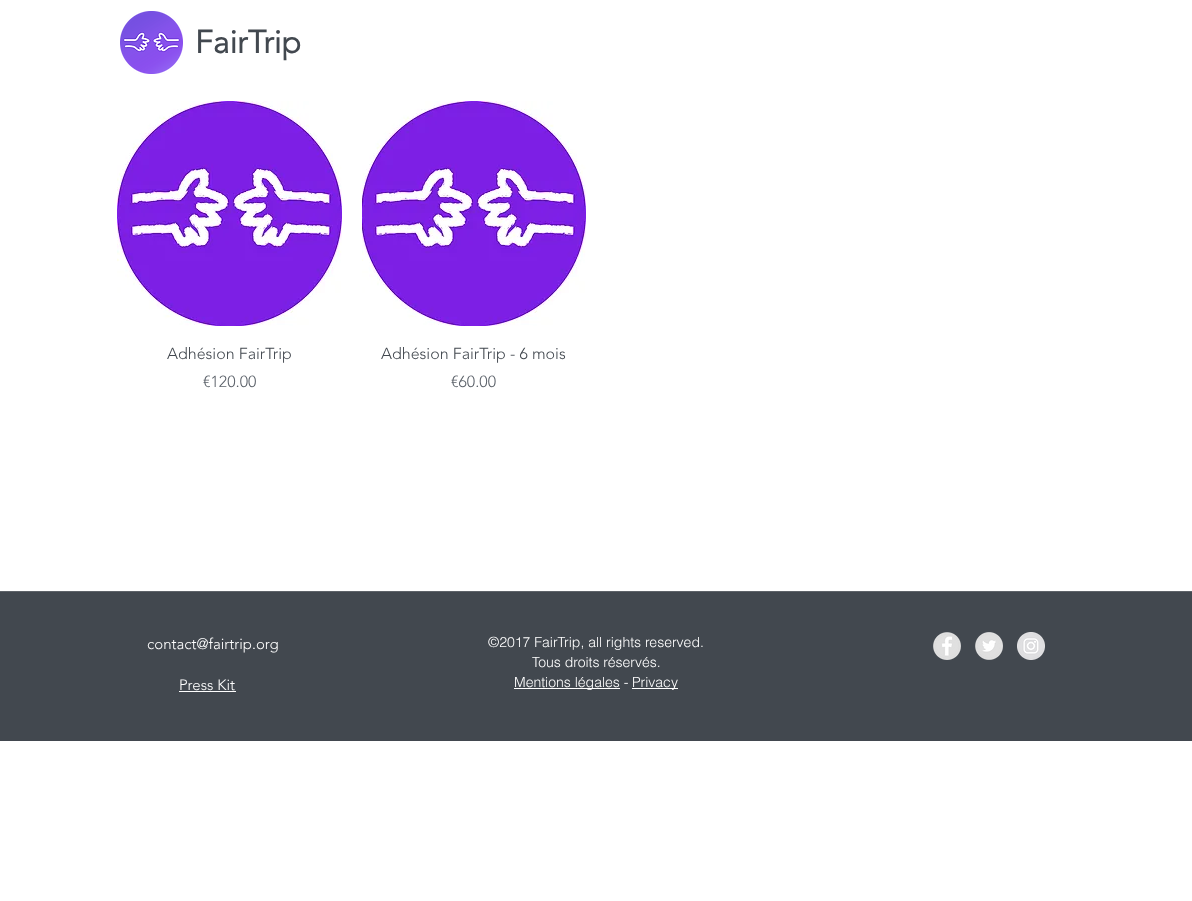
<svg xmlns="http://www.w3.org/2000/svg" width="1192" height="901">
<style>
.a{font:bold 32px 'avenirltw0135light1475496';fill:#42484f}
.b{font:300 16px 'avenirltw0135light1475496';fill:#42484f}
.c{font:300 16px 'avenirltw0135light1475496';fill:#5d636b}
.d{font:300 15px 'avenirltw0135light1475496';fill:#fff}
.e{font:300 14px helvetica;fill:#fff}
</style>
<rect width="100%" height="100%" fill="#fff"/>
<image href="1.png" x="120" y="11" width="63" height="63"/>
<image href="2.png" x="117" y="101" width="225" height="225"/>
<image href="3.png" x="362" y="101" width="224" height="225"/>
<path fill="#42484f" d="M0 592h1192v149H0z"/>
<path fill="#5e6369" d="M0 591h1192v1H0z"/>
<path fill="#fff" d="M514 688h106v1H514z"/>
<path fill="#fff" d="M632 688h46v1H632z"/>
<image href="4.png" x="933" y="632" width="28" height="28"/>
<image href="5.png" x="975" y="632" width="28" height="28"/>
<image href="6.png" x="1017" y="632" width="28" height="28"/>
<path fill="#fff" d="M179 691h57v1H179z"/>
<text class="a" x="195" y="53">FairTrip</text>
<text class="b" x="167" y="359">Adhésion FairTrip</text>
<text class="c" x="203" y="387">€120.00</text>
<text class="b" x="381" y="359">Adhésion FairTrip - 6 mois</text>
<text class="c" x="451" y="387">€60.00</text>
<text class="d" x="147" y="649">contact@fairtrip.org</text>
<text class="e" x="488" y="647">©2017 FairTrip, all rights reserved.</text>
<text class="e" x="532" y="667">Tous droits réservés.</text>
<text class="e" x="514" y="687">Mentions légales -</text>
<text class="e" x="632" y="687">Privacy</text>
<text class="d" x="179" y="690">Press Kit</text>
</svg>
